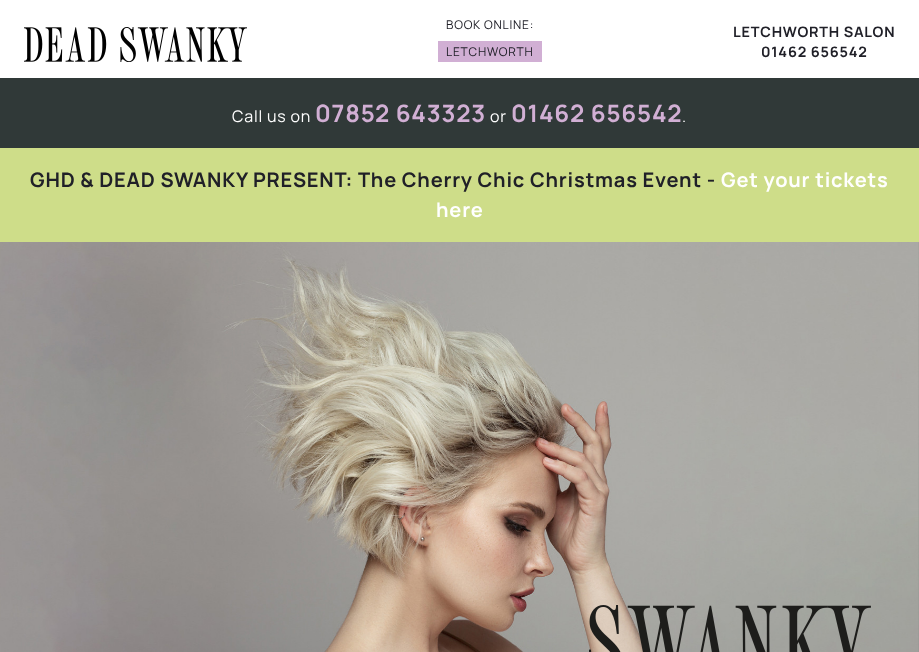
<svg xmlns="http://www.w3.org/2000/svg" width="919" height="652">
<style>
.a{font:12px Manrope;letter-spacing:0.8px;fill:#202028}
.b{font:bold 14.4px Manrope;letter-spacing:0.8px;fill:#202028}
.c{font:16px Manrope;letter-spacing:0.8px;fill:#fff}
.d{font:bold 24px Manrope;letter-spacing:0.8px;fill:#d1afd4}
.e{font:bold 20px Manrope;letter-spacing:0.8px;fill:#202028}
.f{font:bold 20px Manrope;letter-spacing:0.8px;fill:#fff}
</style>
<rect width="100%" height="100%" fill="#303938"/>
<path fill="#fff" d="M0 0h919v78H0z"/>
<image href="1.png" x="24" y="27" width="223" height="35"/>
<path fill="#d1afd4" d="M438 41h104v21H438z"/>
<path fill="#cedd89" d="M0 148h919v94H0z"/>
<image href="2.png" x="0" y="242" width="919" height="410"/>
<image href="3.png" x="589" y="605" width="282" height="47"/>
<text class="a" x="446" y="29">BOOK ONLINE:</text>
<text class="a" x="446" y="56">LETCHWORTH</text>
<text class="b" x="733" y="37">LETCHWORTH SALON</text>
<text class="b" x="761" y="57">01462 656542</text>
<text class="c" x="232" y="122">Call us on</text>
<text class="d" x="315" y="122">07852 643323</text>
<text class="c" x="490" y="122">or</text>
<text class="d" x="511" y="122">01462 656542</text>
<text class="c" x="682" y="122">.</text>
<text class="e" x="30" y="187">GHD &amp; DEAD SWANKY PRESENT: The Cherry Chic Christmas Event -</text>
<text class="f" x="721" y="187">Get your tickets</text>
<text class="f" x="436" y="217">here</text>
</svg>
